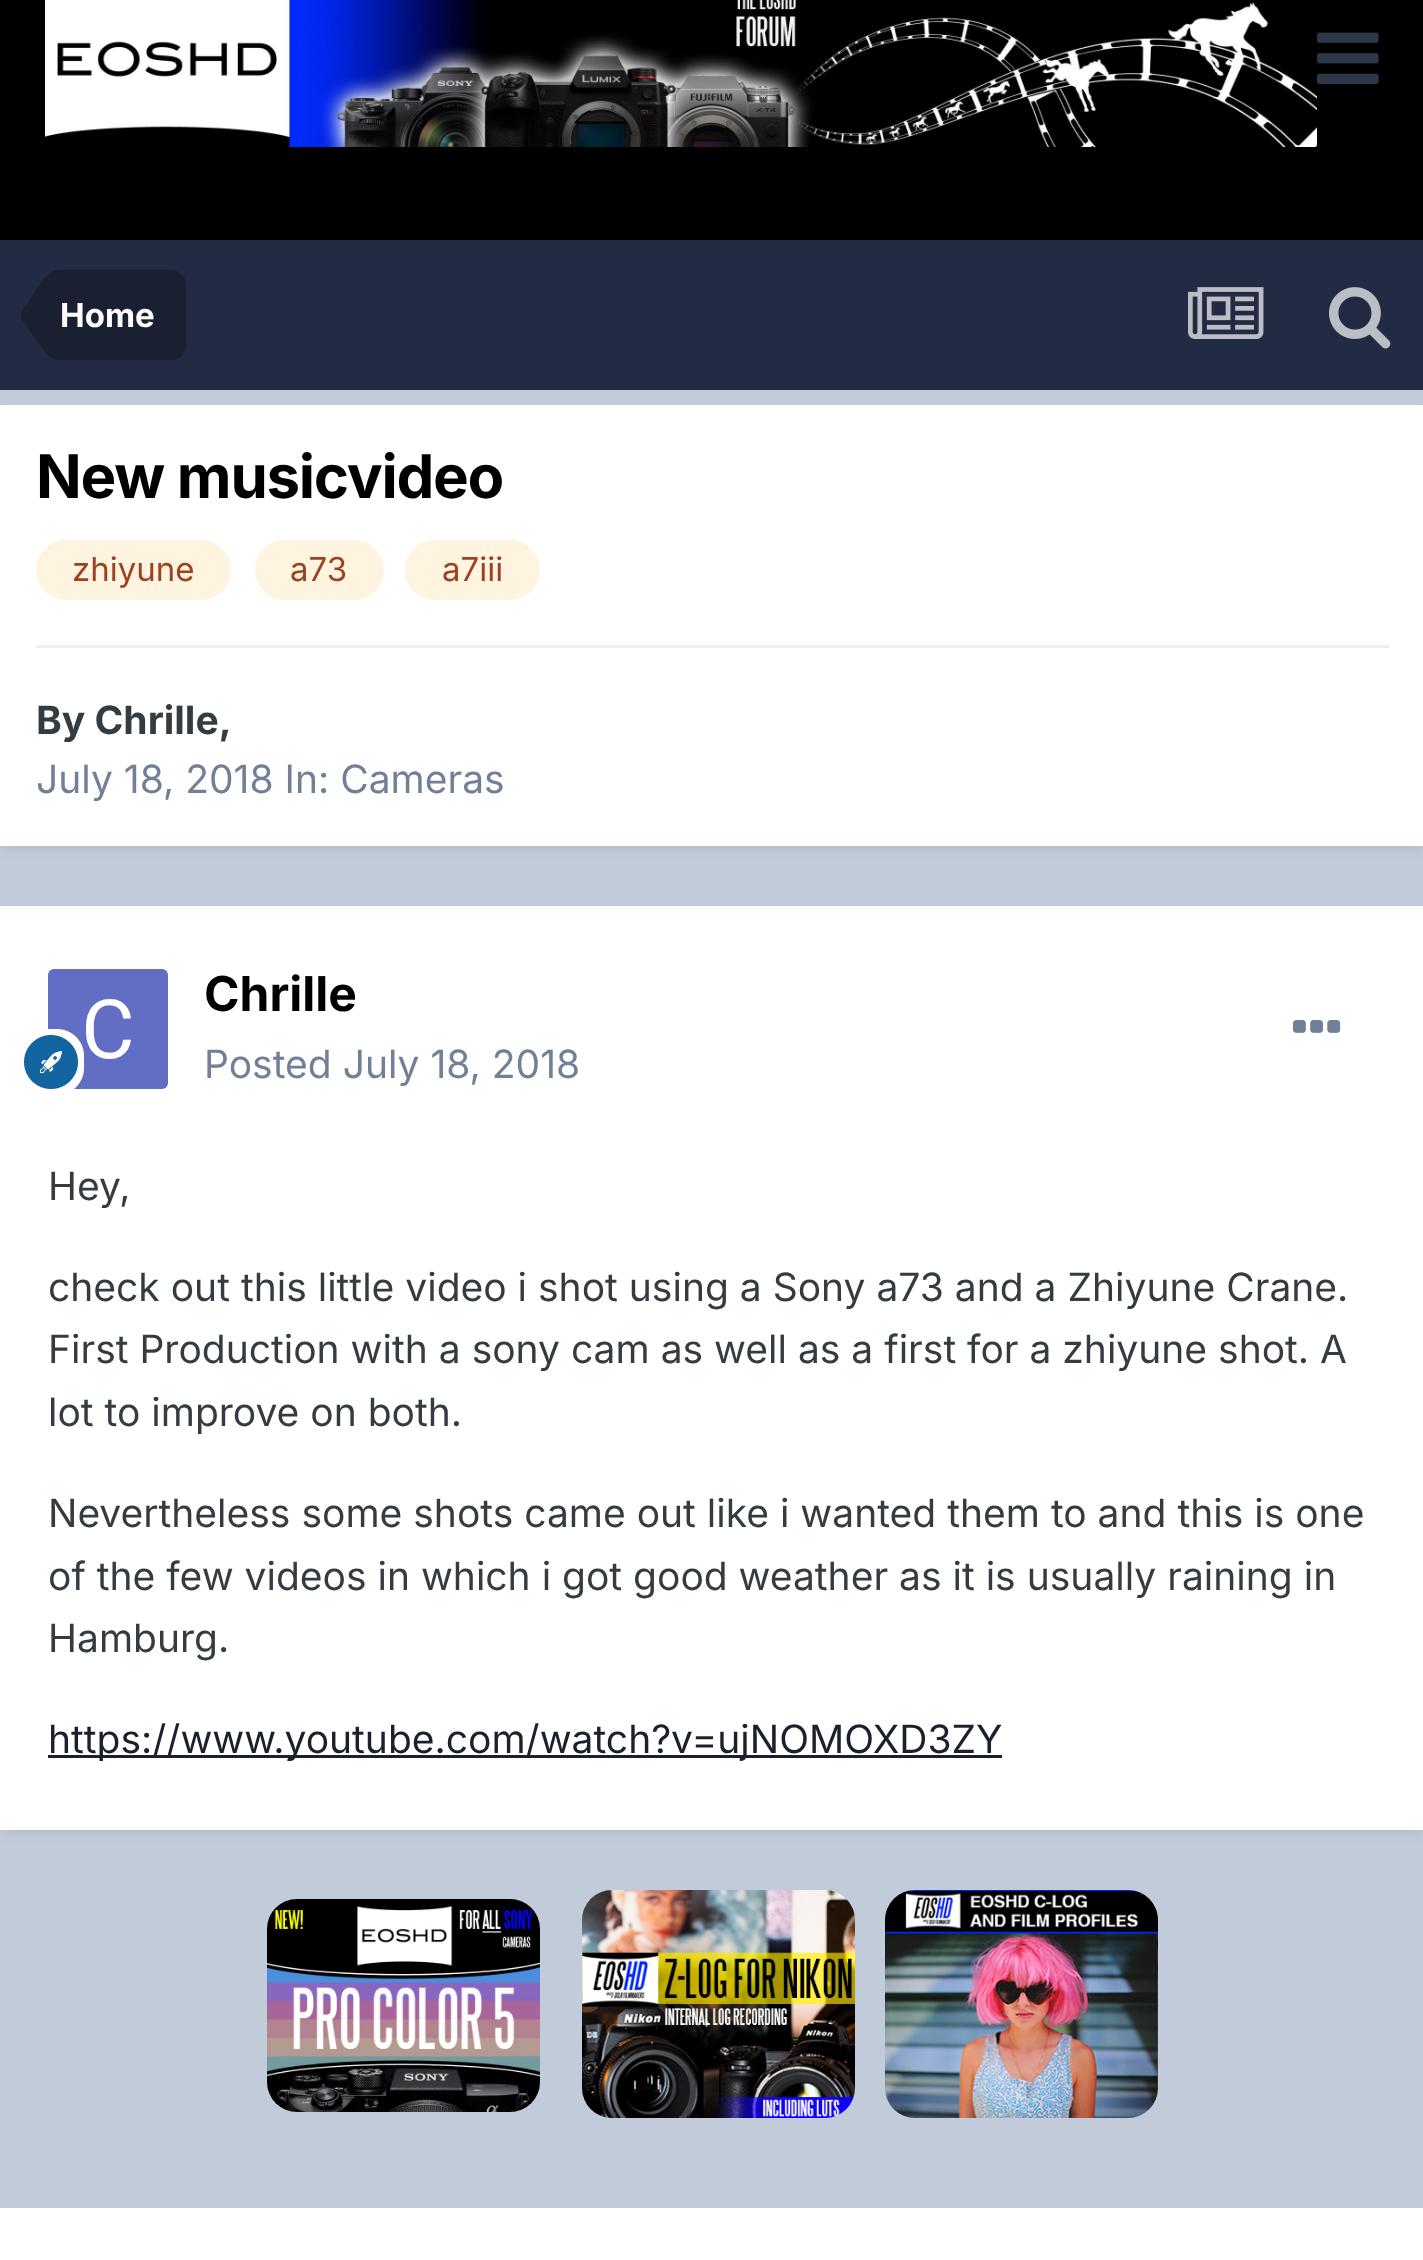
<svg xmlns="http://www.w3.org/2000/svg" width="1423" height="2260">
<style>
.a{font:bold 33px Inter;fill:#fff}
.b{font:bold 60px Inter;letter-spacing:-1.25px;fill:#000}
.c{font:33px Inter;fill:#9c4221}
.d{font:bold 39px Inter;fill:#353c41}
.e{font:39px Inter;fill:#718096}
.f{font:bold 48px Inter;fill:#000}
.g{font:39px Inter;fill:#353c41}
.h{font:39px Inter;fill:#1a202c}
</style>
<rect width="100%" height="100%" fill="#c1cbd9"/>
<path fill="#000" d="M0 0h1423v240H0z"/>
<image href="1.png" x="45" y="0" width="1272" height="147"/>
<image href="2.png" x="1317" y="32" width="62" height="52"/>
<path fill="#232a43" d="M0 240h1423v150H0z"/>
<path fill="#1a2032" d="M60 270h111c8.5 0 15 6.5 15 15v60c0 8.5-6.5 15-15 15h-111z"/>
<path fill="#1a2032" d="M60 315v45c-6 0-11-3-16-9l-21-30c-1-1-2-4-2-6z"/>
<path fill="#1a2032" d="M60 315h-39c0-2 1-5 2-6l21-30c5-6 10-9 16-9z"/>
<image href="3.png" x="1188" y="287" width="76" height="52"/>
<image href="4.png" x="1329" y="287" width="62" height="62"/>
<path fill="#2d37481a" filter="blur(6px)" d="M3 414h1419v435H3z"/>
<path fill="#fff" d="M0 405h1423v441H0z"/>
<rect fill="#fff4df" x="36" y="540" width="195" height="60" rx="30"/>
<rect fill="#fff4df" x="255" y="540" width="129" height="60" rx="30"/>
<rect fill="#fff4df" x="405" y="540" width="135" height="60" rx="30"/>
<path fill="#efeff0" d="M36 645h1353v3H36z"/>
<path fill="#2d37481a" filter="blur(6px)" d="M3 915h1419v918H3z"/>
<path fill="#fff" d="M0 906h1423v924H0z"/>
<image href="5.png" x="48" y="969" width="120" height="120"/>
<image href="6.png" x="24" y="1029" width="60" height="60"/>
<image href="7.png" x="1293" y="1020" width="48" height="13"/>
<path fill="#1a202c" d="M48 1755h954v3H48z"/>
<image href="8.png" x="267" y="1899" width="273" height="213"/>
<image href="9.png" x="582" y="1890" width="273" height="228"/>
<image href="10.png" x="885" y="1890" width="273" height="228"/>
<path fill="#fff" d="M0 2208h1423v52H0z"/>
<text class="a" x="60" y="327">Home</text>
<text class="b" x="36" y="498">New musicvideo</text>
<text class="c" x="72" y="581">zhiyune</text>
<text class="c" x="290" y="581">a73</text>
<text class="c" x="442" y="581">a7iii</text>
<text class="d" x="36" y="734">By Chrille,</text>
<text class="e" x="36" y="793">July 18, 2018 In: Cameras</text>
<text class="f" x="204" y="1011">Chrille</text>
<text class="e" x="204" y="1078">Posted July 18, 2018</text>
<text class="g" x="48" y="1200">Hey,</text>
<text class="g" x="48" y="1301">check out this little video i shot using a Sony a73 and a Zhiyune Crane.</text>
<text class="g" x="48" y="1363">First Production with a sony cam as well as a first for a zhiyune shot. A</text>
<text class="g" x="48" y="1426">lot to improve on both.</text>
<text class="g" x="48" y="1527">Nevertheless some shots came out like i wanted them to and this is one</text>
<text class="g" x="48" y="1590">of the few videos in which i got good weather as it is usually raining in</text>
<text class="g" x="48" y="1652">Hamburg.</text>
<text class="h" x="48" y="1753">https://www.youtube.com/watch?v=ujNOMOXD3ZY</text>
</svg>
